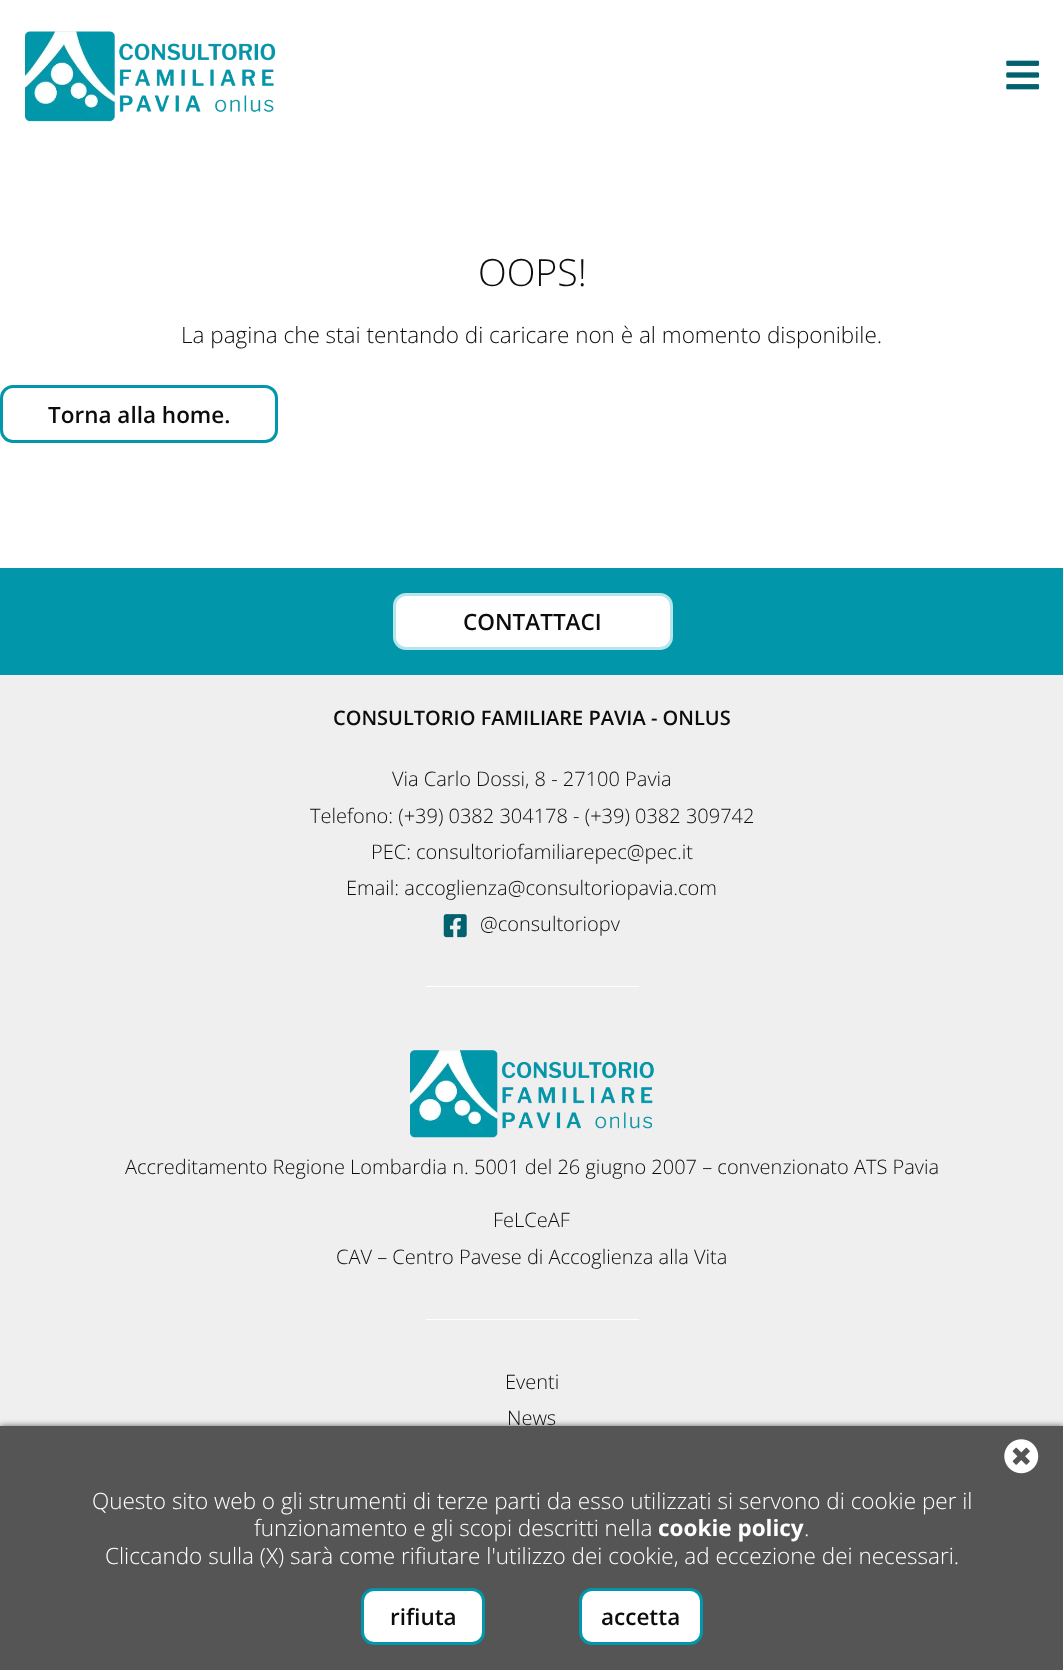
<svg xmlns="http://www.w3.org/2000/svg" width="1063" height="1670">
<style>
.a{font:300 37.5px Open Sans;fill:#0c0c0c}
.b{font:300 22.5px Open Sans;fill:#0c0c0c}
.c{font:600 22.5px Open Sans;fill:#0c0c0c}
.d{font:600 20px Open Sans;fill:#0c0c0c}
.e{font:300 20px Open Sans;fill:#0c0c0c}
.f{font:300 22.5px Open Sans;fill:#fff}
.g{font:bold 22.5px Open Sans;fill:#fff}
</style>
<rect width="100%" height="100%" fill="#fff"/>
<image href="1.png" x="25" y="31" width="250" height="91"/>
<image href="2.png" x="1006" y="60" width="34" height="30"/>
<rect fill="none" stroke="#0296ab" stroke-width="3" x="1.5" y="386.5" width="275" height="55" rx="11.5"/>
<path fill="#0296ab" d="M0 568h1063v107H0z"/>
<rect fill="#fff" stroke="#b7e5ea" stroke-width="3" x="394.5" y="594.5" width="277" height="54" rx="11.5"/>
<path fill="#efefef" d="M0 675h1063v751H0z"/>
<image href="3.png" x="443" y="914" width="24" height="24"/>
<path fill="#fff" d="M426 986h213v1H426z"/>
<image href="4.png" x="410" y="1050" width="244" height="88"/>
<path fill="#fff" d="M426 1319h213v1H426z"/>
<path fill="#00000099" filter="blur(3px)" d="M0 1426h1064v244H0z"/>
<path fill="#555" d="M0 1426h1063v244H0z"/>
<image href="5.png" x="1004" y="1439" width="35" height="35"/>
<rect fill="#fff" stroke="#0296ab" stroke-width="3" x="362.5" y="1589.5" width="121" height="54" rx="11.5"/>
<rect fill="#fff" stroke="#0296ab" stroke-width="3" x="580.5" y="1589.5" width="121" height="54" rx="11.5"/>
<text class="a" x="478" y="286">OOPS!</text>
<text class="b" x="181" y="343">La pagina che stai tentando di caricare non è al momento disponibile.</text>
<text class="c" x="48" y="423">Torna alla home.</text>
<text class="c" x="463" y="630">CONTATTACI</text>
<text class="d" x="333" y="725">CONSULTORIO FAMILIARE PAVIA - ONLUS</text>
<text class="e" x="392" y="786">Via Carlo Dossi, 8 - 27100 Pavia</text>
<text class="e" x="310" y="823">Telefono: (+39) 0382 304178 - (+39) 0382 309742</text>
<text class="e" x="371" y="859">PEC: consultoriofamiliarepec@pec.it</text>
<text class="e" x="346" y="895">Email: accoglienza@consultoriopavia.com</text>
<text class="e" x="480" y="931">@consultoriopv</text>
<text class="e" x="125" y="1174">Accreditamento Regione Lombardia n. 5001 del 26 giugno 2007 – convenzionato ATS Pavia</text>
<text class="e" x="493" y="1227">FeLCeAF</text>
<text class="e" x="336" y="1264">CAV – Centro Pavese di Accoglienza alla Vita</text>
<text class="e" x="505" y="1389">Eventi</text>
<text class="e" x="507" y="1425">News</text>
<text class="f" x="92" y="1509">Questo sito web o gli strumenti di terze parti da esso utilizzati si servono di cookie per il</text>
<text class="f" x="254" y="1536">funzionamento e gli scopi descritti nella</text>
<text class="g" x="658" y="1536">cookie policy</text>
<text class="f" x="804" y="1536">.</text>
<text class="f" x="105" y="1564">Cliccando sulla (X) sarà come rifiutare l'utilizzo dei cookie, ad eccezione dei necessari.</text>
<text class="c" x="390" y="1625">rifiuta</text>
<text class="c" x="601" y="1625">accetta</text>
</svg>
